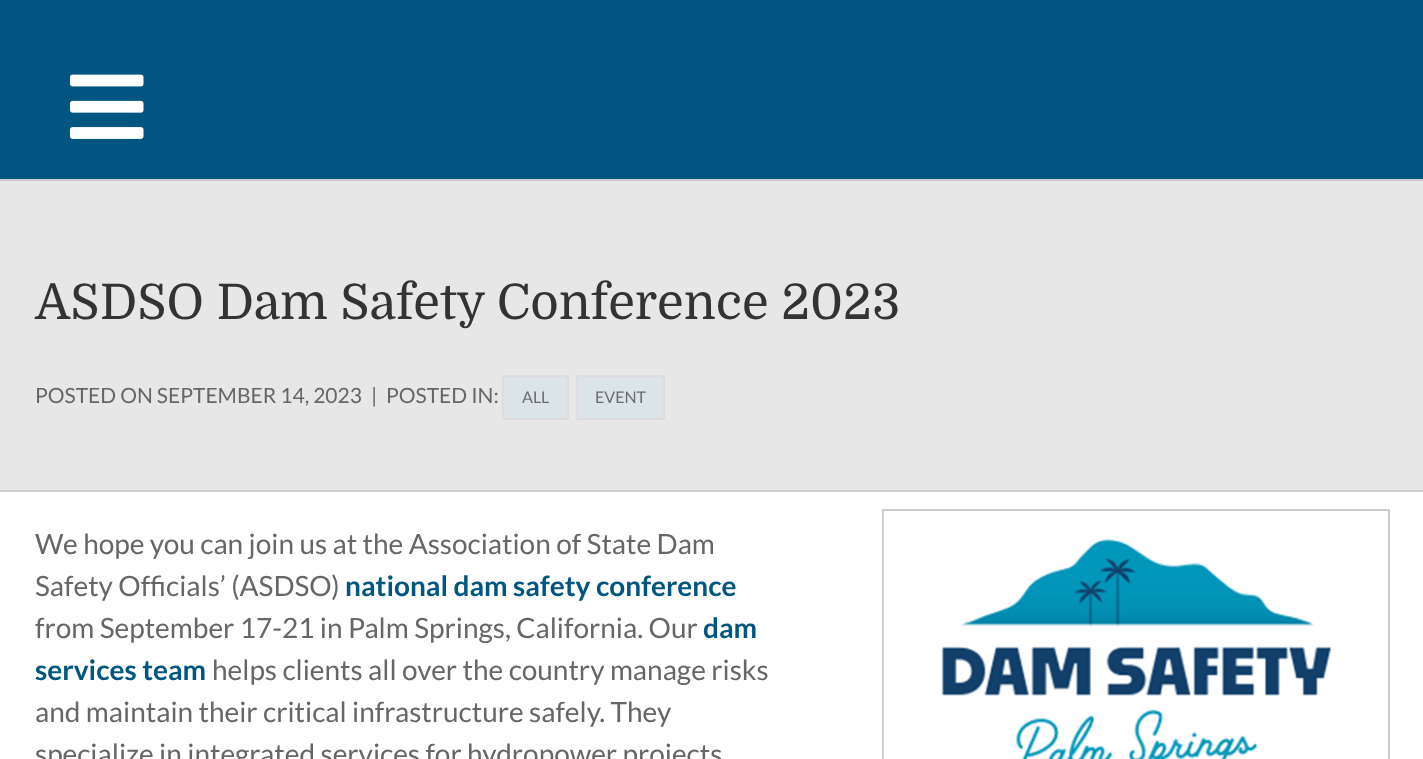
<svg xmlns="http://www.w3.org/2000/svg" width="1423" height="759">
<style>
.a{font:49px Domine;fill:#333}
.b{font:21px Lato;fill:#666}
.c{font:16px Lato;fill:#6a6b6c}
.d{font:28px Lato;fill:#666}
.e{font:bold 28px Lato;fill:#005581}
</style>
<rect width="100%" height="100%" fill="#fff"/>
<path fill="#005581" d="M0 0h1423v179H0z"/>
<image href="1.png" x="70" y="74" width="74" height="65"/>
<path fill="#e8e7e7" d="M0 181h1423v309H0z"/>
<path fill="#ccc" d="M0 179h1423v2H0z"/>
<path fill="#dbe5e9" stroke="#dedcdc" stroke-width="2" d="M503 376h65v43H503z"/>
<path fill="#dbe5e9" stroke="#dedcdc" stroke-width="2" d="M577 376h87v43H577z"/>
<path fill="#ccc" d="M0 490h1423v2H0z"/>
<path fill="none" stroke="#ccc" stroke-width="2" d="M883 510h506v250H883z"/>
<image href="2.png" x="883" y="511" width="449" height="248"/>
<text class="a" x="35" y="319">ASDSO Dam Safety Conference 2023</text>
<text class="b" x="35" y="403">POSTED ON SEPTEMBER 14, 2023</text>
<text class="b" x="371" y="403">|</text>
<text class="b" x="386" y="403">POSTED IN:</text>
<text class="c" x="522" y="403">ALL</text>
<text class="c" x="595" y="403">EVENT</text>
<text class="d" x="35" y="554">We hope you can join us at the Association of State Dam</text>
<text class="d" x="35" y="596">Safety Officials’ (ASDSO)</text>
<text class="e" x="345" y="596">national dam safety conference</text>
<text class="d" x="35" y="638">from September 17-21 in Palm Springs, California. Our</text>
<text class="e" x="703" y="638">dam</text>
<text class="e" x="35" y="680">services team</text>
<text class="d" x="212" y="680">helps clients all over the country manage risks</text>
<text class="d" x="35" y="722">and maintain their critical infrastructure safely. They</text>
<text class="d" x="35" y="764">specialize in integrated services for hydropower projects</text>
</svg>
